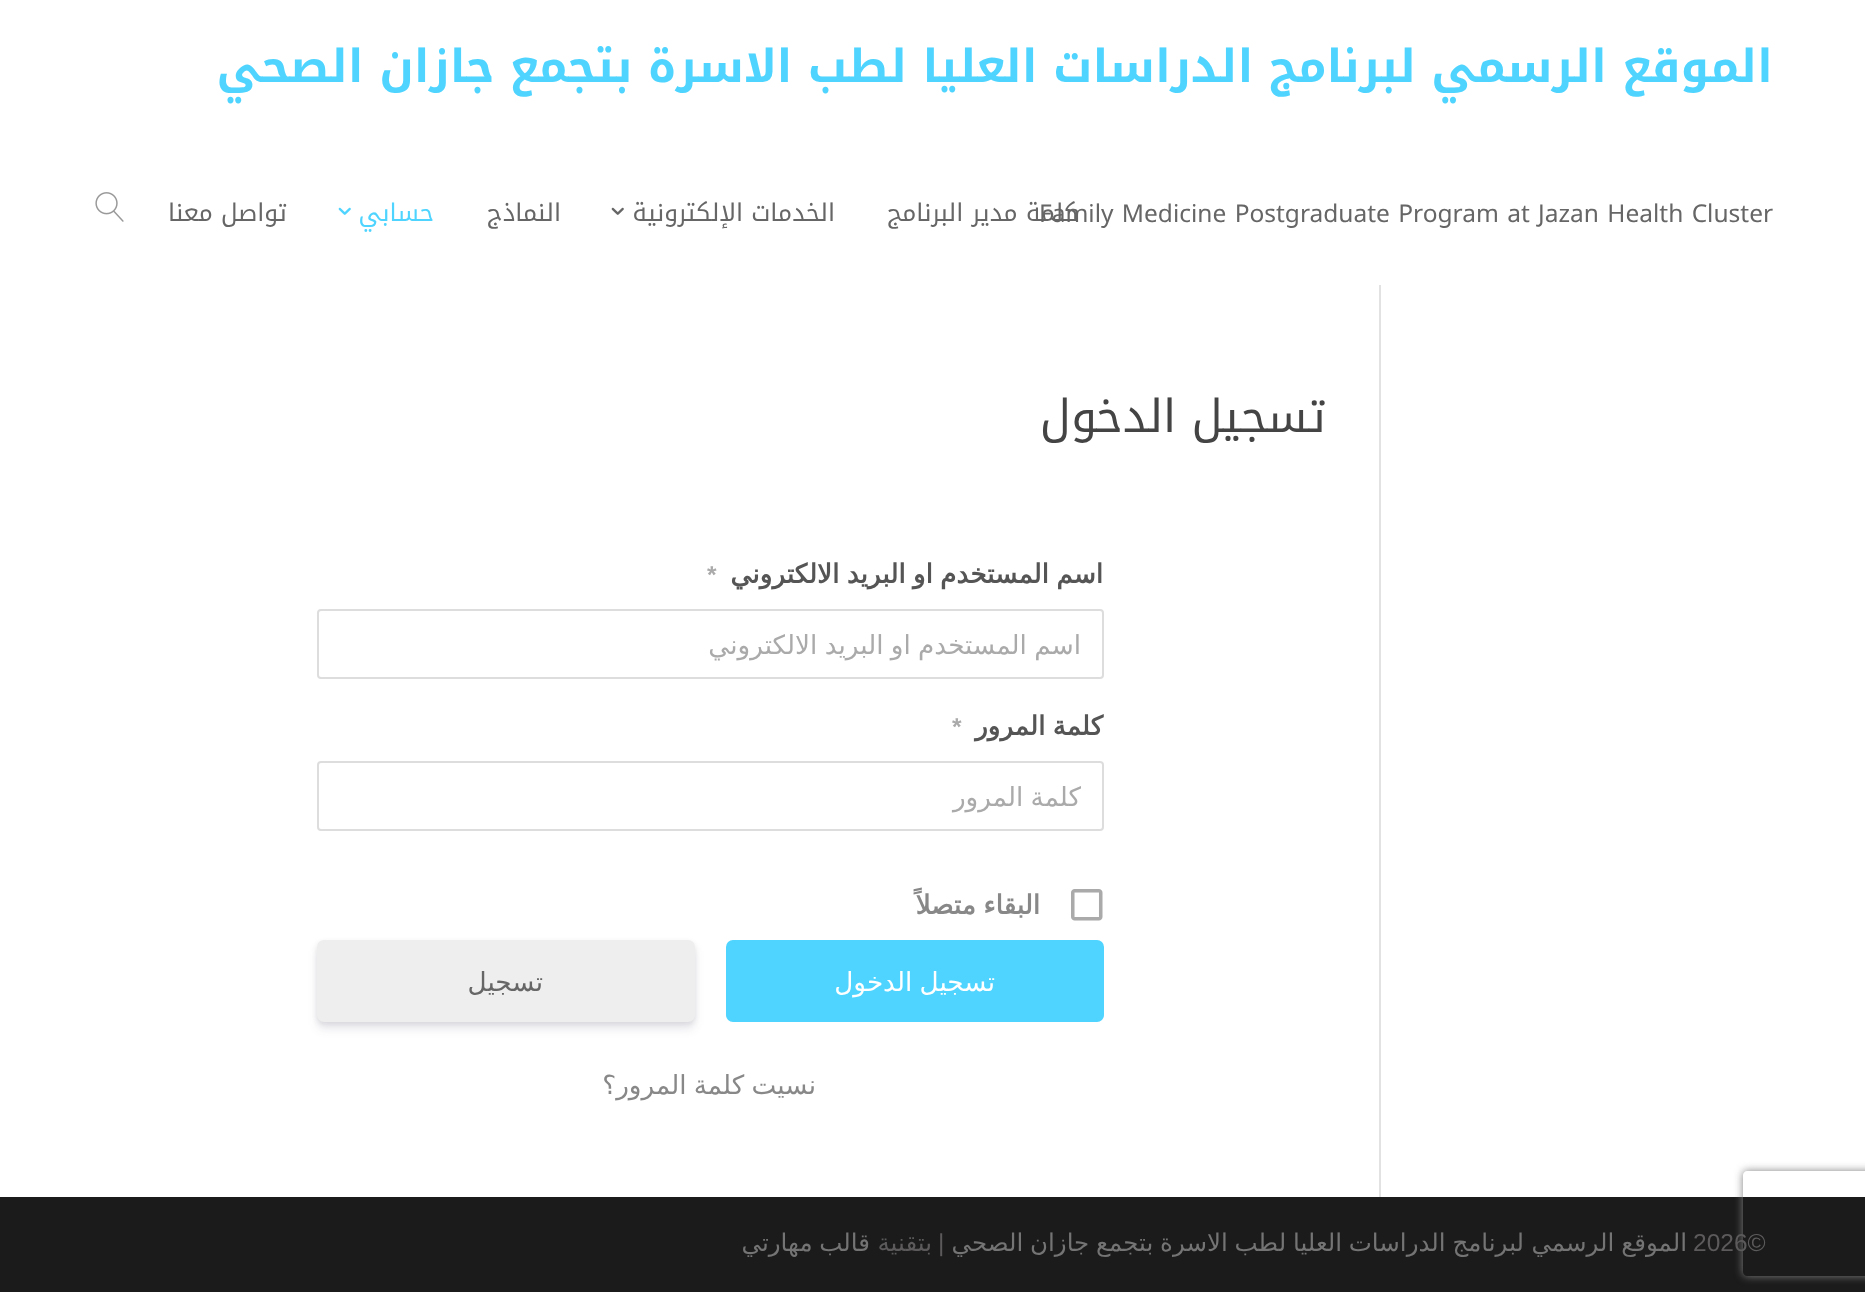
<svg xmlns="http://www.w3.org/2000/svg" width="1865" height="1299">
<style>
.a{font:bold 45.5px Noto Kufi Arabic;direction:rtl;fill:#4fd4ff}
.b{font:24.5px Noto Kufi Arabic;fill:#666}
.c{font:24.5px Noto Kufi Arabic;direction:rtl;fill:#666}
.d{font:24.5px Noto Kufi Arabic;direction:rtl;fill:#4fd4ff}
.e{font:45.5px Noto Kufi Arabic;direction:rtl;fill:#444}
.f{font:bold 26.25px DejaVu Sans;direction:rtl;fill:#555}
.g{font:bold 24.5px Liberation Sans;fill:#aaa}
.h{font:26.25px DejaVu Sans;direction:rtl;fill:#aaa}
.i{font:bold 26.25px DejaVu Sans;direction:rtl;fill:#888}
.j{font:26.25px DejaVu Sans;direction:rtl;fill:#fff}
.k{font:26.25px DejaVu Sans;direction:rtl;fill:#666}
.l{font:26.25px DejaVu Sans;direction:rtl;fill:#888}
.m{font:24.5px Liberation Sans;fill:#5c5a5a}
.n{font:24.5px DejaVu Sans;direction:rtl;fill:#747474}
.o{font:24.5px DejaVu Sans;direction:rtl;fill:#5c5a5a}
</style>
<defs>
<clipPath id="clip1"><path d="M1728 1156h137v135h-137zm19 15h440c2 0 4 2 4 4v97c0 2-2 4-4 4h-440c-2 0-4-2-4-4v-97c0-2 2-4 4-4z" clip-rule="evenodd"/></clipPath>
<clipPath id="clip2"><path d="M340 630h742v32H340z"/></clipPath>
</defs>
<rect width="100%" height="100%" fill="#fff"/>
<path fill="#1b1b1b" d="M0 1197h1865v95H0z"/>
<g clip-path="url(#clip1)">
<rect fill="#808080" filter="blur(4.5px)" x="1743" y="1171" width="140" height="105" rx="4"/>
</g>
<image href="1.png" x="611" y="207" width="13" height="8"/>
<image href="2.png" x="338" y="207" width="13" height="8"/>
<image href="3.png" x="95" y="192" width="29" height="30"/>
<path fill="#e2e2e2" d="M1379 285h2v912H1379z"/>
<rect fill="none" stroke="#ddd" stroke-width="2" x="318" y="610" width="785" height="68" rx="3"/>
<rect fill="none" stroke="#ddd" stroke-width="2" x="318" y="762" width="785" height="68" rx="3"/>
<image href="4.png" x="1071" y="889" width="32" height="32"/>
<rect fill="#4fd4ff" x="726" y="940" width="378" height="82" rx="7"/>
<rect fill="#00000014" filter="blur(2.5px)" x="317" y="942" width="378" height="82" rx="7"/>
<rect fill="#32325d1c" filter="blur(5px)" x="317" y="947" width="378" height="82" rx="7"/>
<rect fill="#eee" x="317" y="940" width="378" height="82" rx="7"/>
<text class="a" x="1773" y="82">الموقع الرسمي</text>
<text class="a" x="1416" y="82">لبرنامج الدراسات العليا لطب الاسرة بتجمع جازان الصحي</text>
<text class="b" x="1039" y="222">Family Medicine Postgraduate Program at Jazan Health Cluster</text>
<text class="c" x="1078" y="221">كلمة مدير البرنامج</text>
<text class="c" x="835" y="221">الخدمات الإلكترونية</text>
<text class="c" x="561" y="221">النماذج</text>
<text class="d" x="434" y="221">حسابي</text>
<text class="c" x="287" y="221">تواصل معنا</text>
<text class="e" x="1326" y="432">تسجيل الدخول</text>
<text class="f" x="1103" y="583" word-spacing="-1">اسم المستخدم او البريد الالكتروني</text>
<text class="g" x="707" y="583">*</text>
<g clip-path="url(#clip2)">
<text class="h" x="1081" y="654" word-spacing="-1">اسم المستخدم او البريد الالكتروني</text>
</g>
<text class="f" x="1103" y="735" word-spacing="-1">كلمة المرور</text>
<text class="g" x="952" y="735">*</text>
<text class="h" x="1081" y="806" word-spacing="-1">كلمة المرور</text>
<text class="i" x="1040" y="914" word-spacing="-1">البقاء متصلاً</text>
<text class="j" x="995" y="991" word-spacing="-1">تسجيل الدخول</text>
<text class="k" x="543" y="991">تسجيل</text>
<text class="l" x="816" y="1094" word-spacing="-1">نسيت كلمة المرور؟</text>
<text class="m" x="1693" y="1251">2026©</text>
<text class="n" x="1687" y="1251" word-spacing="-1">الموقع الرسمي</text>
<text class="n" x="1524" y="1251" word-spacing="-1">لبرنامج الدراسات العليا لطب الاسرة بتجمع جازان الصحي</text>
<text class="m" x="938" y="1251">|</text>
<text class="o" x="932" y="1251">بتقنية</text>
<text class="n" x="870" y="1251" word-spacing="-1">قالب مهارتي</text>
</svg>
